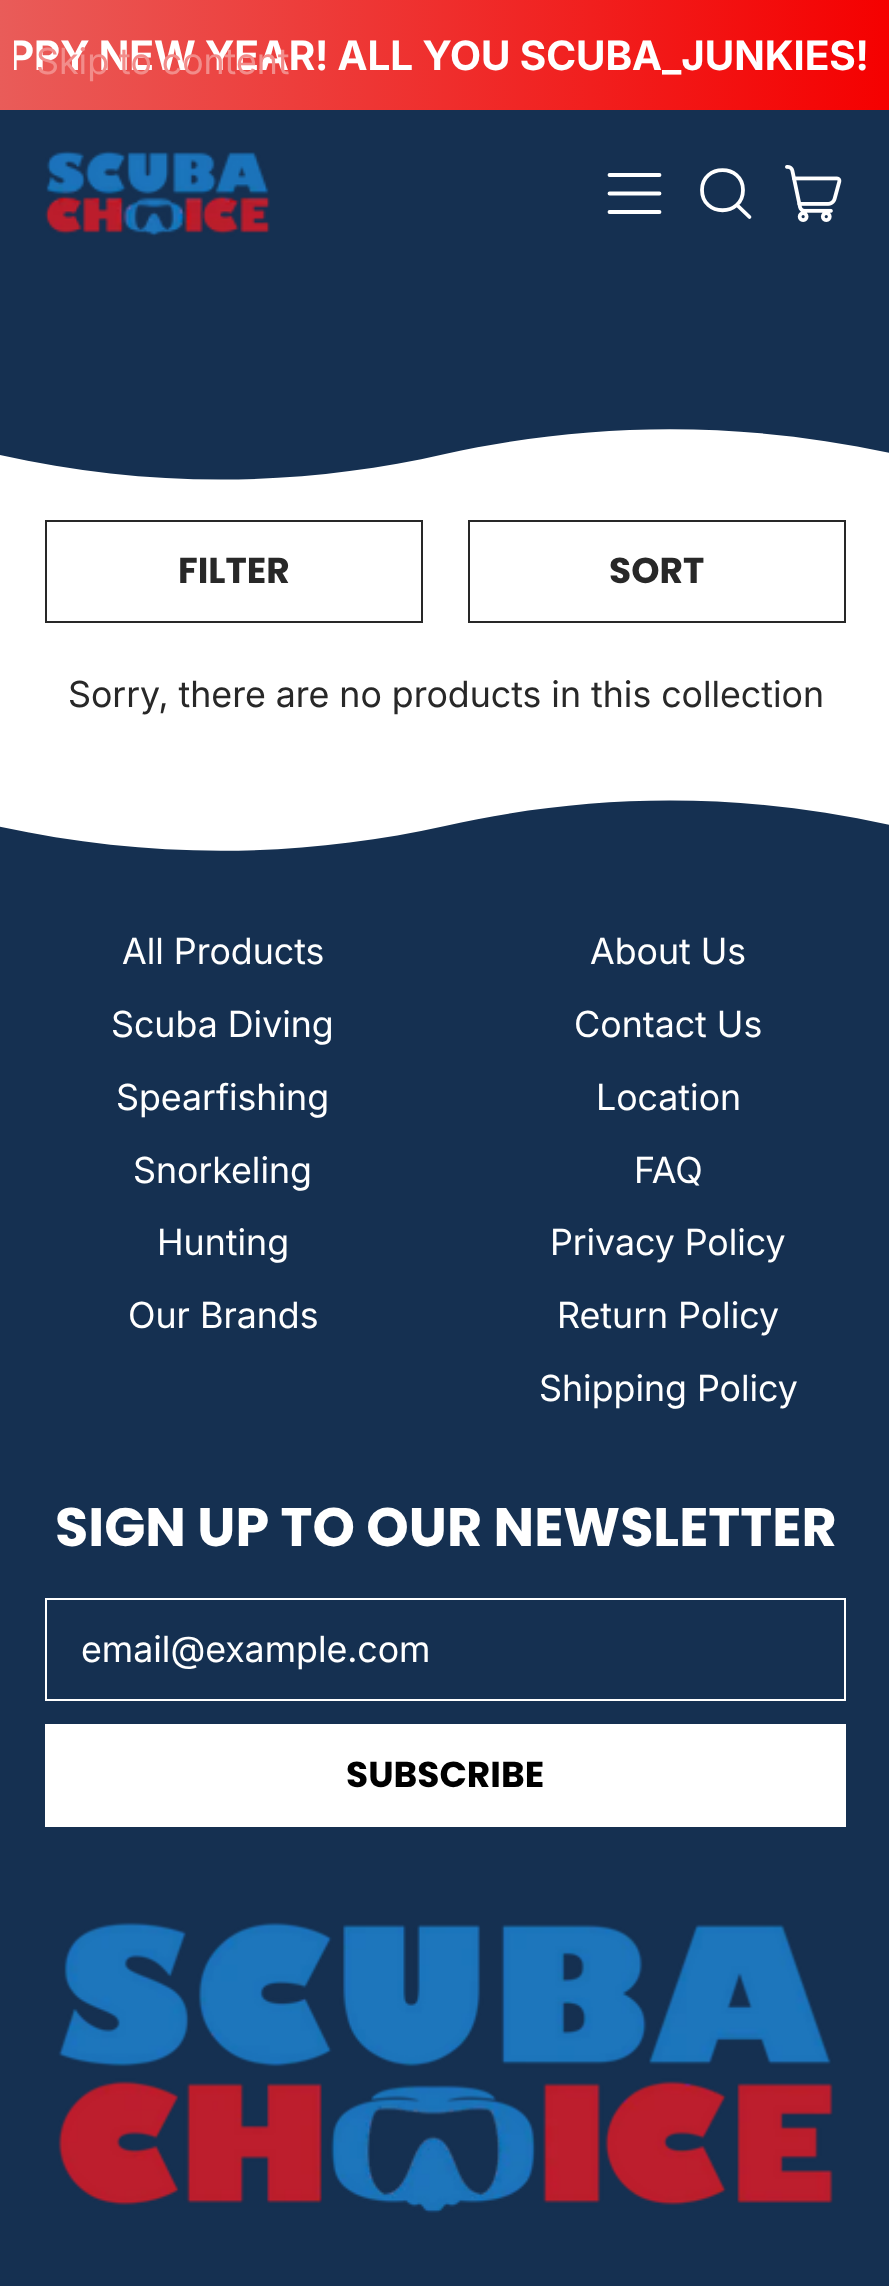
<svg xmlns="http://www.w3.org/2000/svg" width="889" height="2286">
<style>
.a{font:bold 40.5px Inter;fill:#fff}
.b{font:36px Inter;fill:#f28c8a}
.c{font:bold 36px Poppins;fill:#282828}
.d{font:36px Inter;fill:#282828}
.e{font:36px Inter;fill:#fff}
.f{font:bold 54px Poppins;fill:#fff}
.g{font:bold 36px Poppins;fill:#000}
</style>
<defs>
<linearGradient id="g1" gradientUnits="userSpaceOnUse" x1="0" y1="55" x2="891" y2="55"><stop offset="0" stop-color="#e95c59"/><stop offset="1" stop-color="#f50000"/></linearGradient>
<clipPath id="clip1"><path d="M0 425h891v59H0z"/></clipPath>
<clipPath id="clip2"><path d="M14 27h864v56H14z"/></clipPath>
</defs>
<rect width="100%" height="100%" fill="#fff"/>
<path fill="url(#g1)" d="M0 0h889v110H0z"/>
<path fill="#153051" d="M0 110h889v370H0z"/>
<image href="1.png" x="45" y="151" width="225" height="86"/>
<path fill="none" stroke="#fff" stroke-width="3.8" stroke-linecap="round" stroke-linejoin="round" d="M659.5 212h-50m50-18.5h-50m50-18.5h-50"/>
<path fill="none" stroke="#fff" stroke-width="3.8" stroke-linecap="round" stroke-linejoin="round" d="M702 190c0 27 41 27 41 0c0-26.5-41-26.5-41 0zm47.5 27l-12-11.5"/>
<image href="2.png" x="785" y="165" width="57" height="57"/>
<g clip-path="url(#clip1)">
<path fill="#fff" d="M445 454c-149 34-299 34-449 0v34h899v-34c-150-33-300-33-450 0z"/>
</g>
<path fill="none" stroke="#282828" stroke-width="2" d="M46 521h376v101H46z"/>
<path fill="none" stroke="#282828" stroke-width="2" d="M469 521h376v101H469z"/>
<path fill="#153051" d="M445 826c-149 33-299 33-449 0v33h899v-33c-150-34-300-34-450 0z"/>
<path fill="#153051" d="M0 859h889v1427H0z"/>
<path fill="none" stroke="#fff" stroke-width="2" d="M46 1599h799v101H46z"/>
<path fill="#fff" d="M45 1724h801v103H45z"/>
<image href="3.png" x="58" y="1922" width="775" height="291"/>
<g clip-path="url(#clip2)">
<text class="a" x="8" y="70">PPY NEW YEAR! ALL YOU SCUBA_JUNKIES!</text>
</g>
<text class="b" x="36" y="74">Skip to content</text>
<text class="c" x="178" y="583">FILTER</text>
<text class="c" x="609" y="583">SORT</text>
<text class="d" x="68" y="707">Sorry, there are no products in this collection</text>
<text class="e" x="122" y="964">All Products</text>
<text class="e" x="111" y="1037">Scuba Diving</text>
<text class="e" x="116" y="1110">Spearfishing</text>
<text class="e" x="133" y="1183">Snorkeling</text>
<text class="e" x="157" y="1255">Hunting</text>
<text class="e" x="128" y="1328">Our Brands</text>
<text class="e" x="590" y="964">About Us</text>
<text class="e" x="574" y="1037">Contact Us</text>
<text class="e" x="596" y="1110">Location</text>
<text class="e" x="634" y="1183">FAQ</text>
<text class="e" x="550" y="1255">Privacy Policy</text>
<text class="e" x="557" y="1328">Return Policy</text>
<text class="e" x="539" y="1401">Shipping Policy</text>
<text class="f" x="55" y="1546">SIGN UP TO OUR NEWSLETTER</text>
<text class="e" x="81" y="1662">email@example.com</text>
<text class="g" x="346" y="1787">SUBSCRIBE</text>
</svg>
